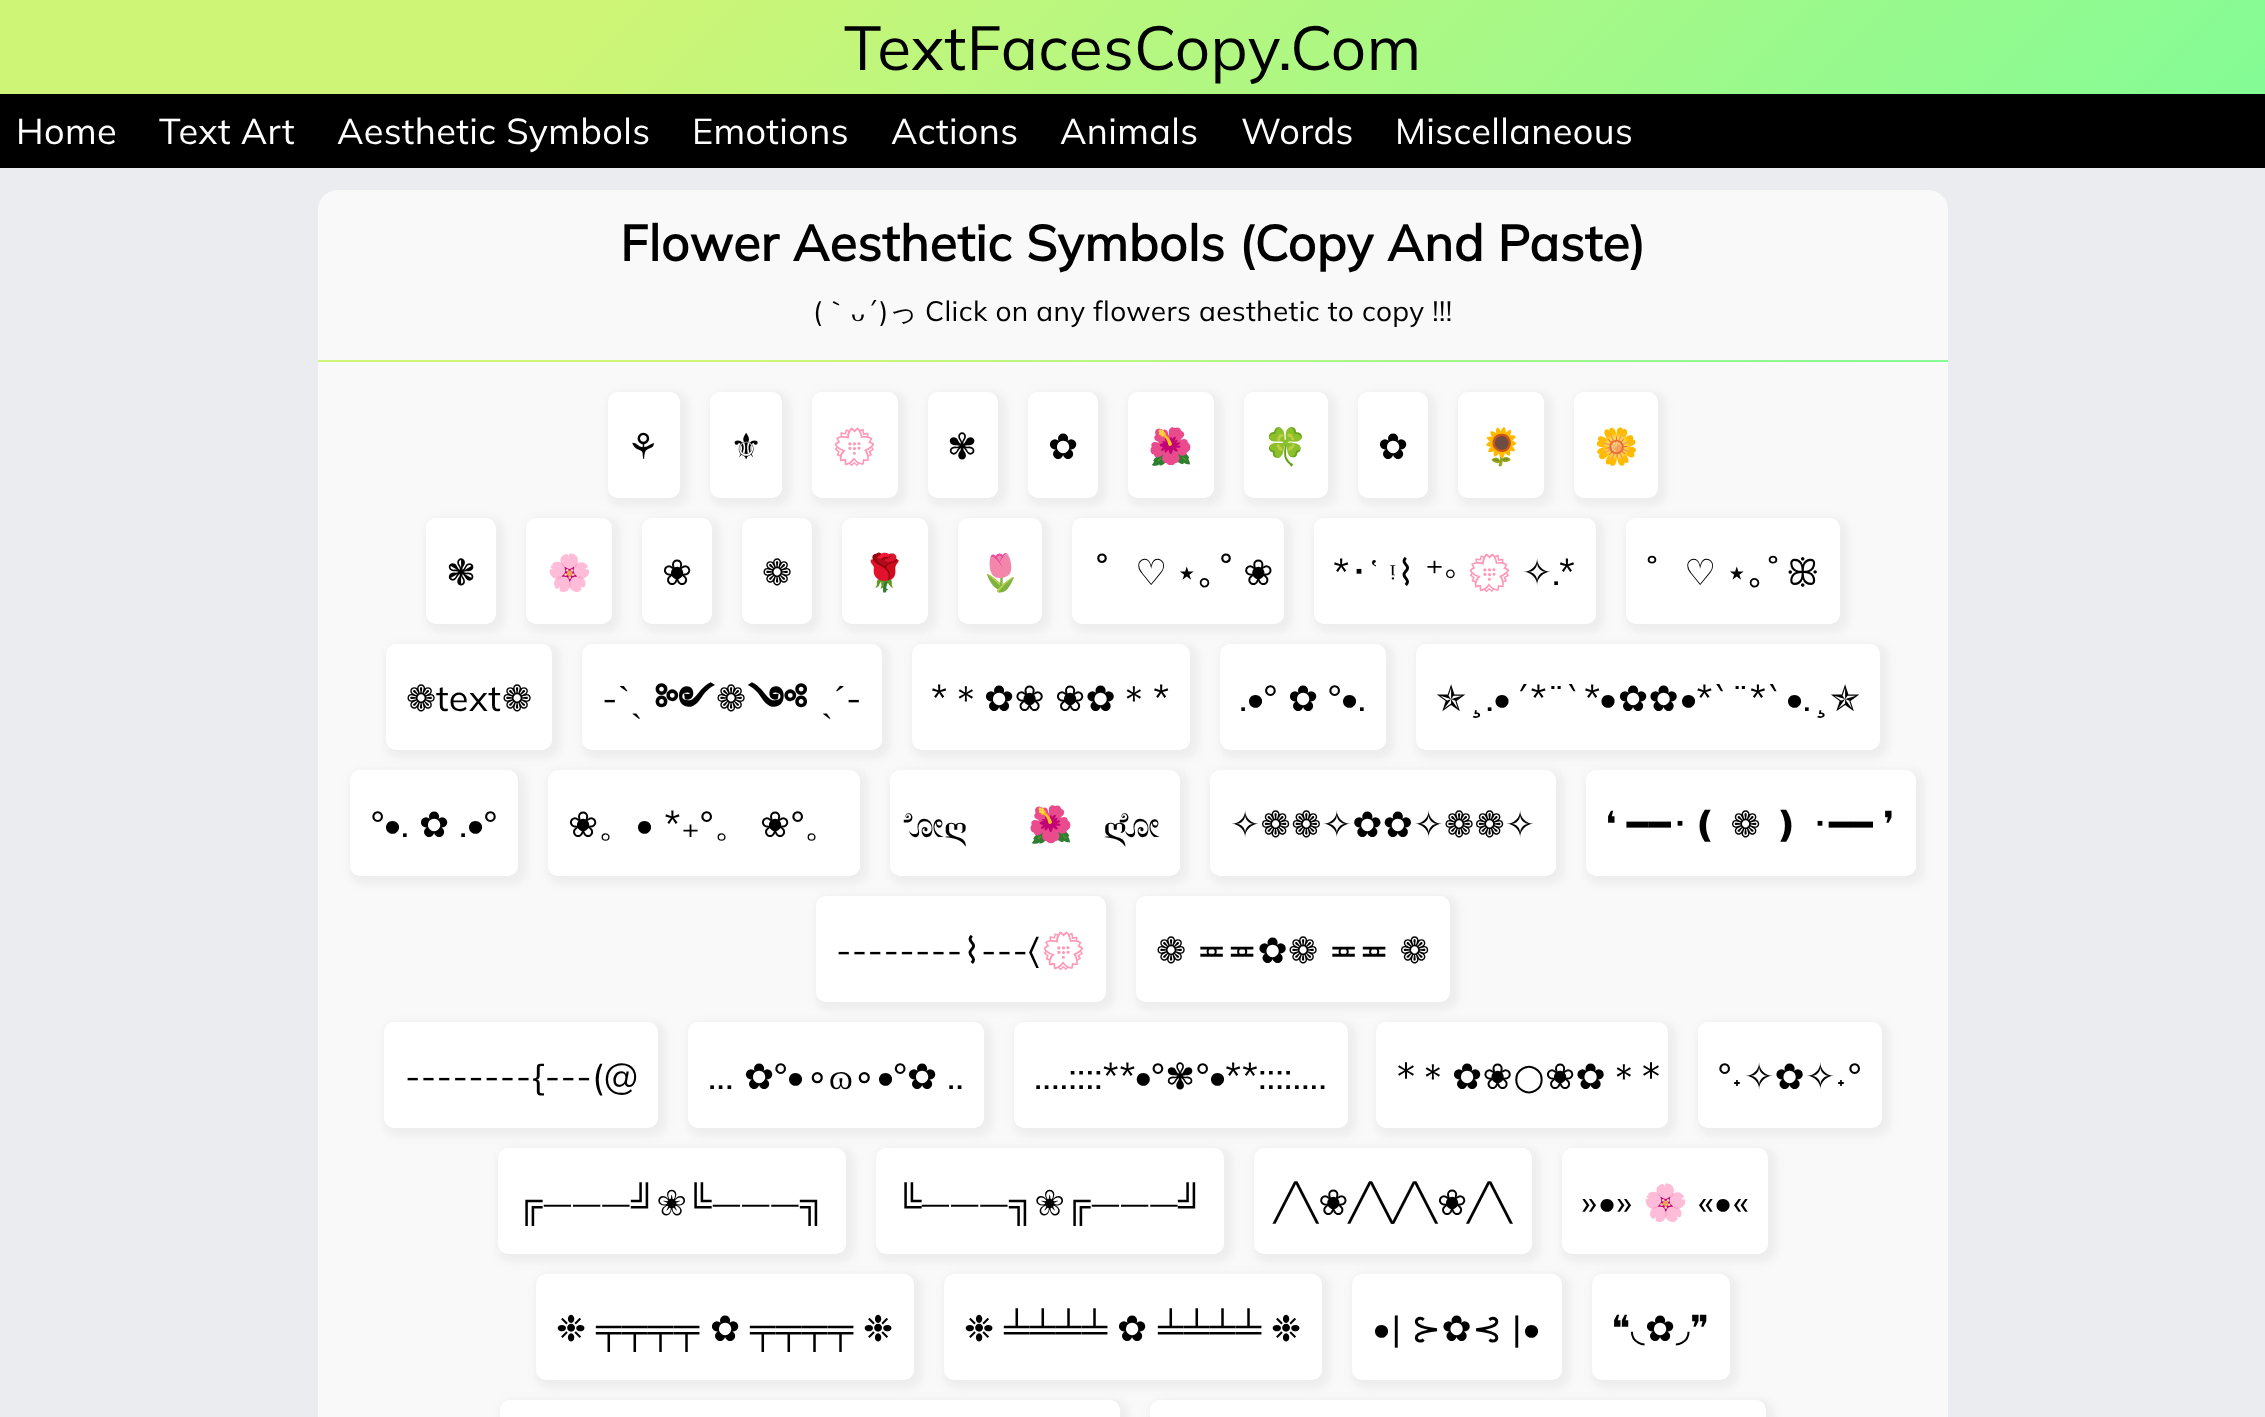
<svg xmlns="http://www.w3.org/2000/svg" width="2265" height="1417">
<style>
.a{font:200 62px Mulish;letter-spacing:0.4px;fill:#000}
.b{font:200 36px Mulish;letter-spacing:0.4px;fill:#fff}
.c{font:bold 50px Mulish;letter-spacing:0.4px;fill:#000}
.d{font:200 28px Mulish;letter-spacing:0.4px;fill:#000}
.e{font:500 28px WenQuanYi Zen Hei;letter-spacing:0.4px;fill:#000}
.f{font:28px Liberation Serif;letter-spacing:0.4px;fill:#000}
.g{font:36px DejaVu Sans;letter-spacing:0.4px;fill:#000}
.h{font:36px Noto Color Emoji;letter-spacing:0.4px;fill:#000}
.i{font:36px IPAGothic;letter-spacing:0.4px;fill:#000}
.j{font:200 36px Mulish;letter-spacing:0.4px;fill:#000}
.k{font:36px 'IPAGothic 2';letter-spacing:0.4px;fill:#000}
.l{font:36px Liberation Serif;letter-spacing:0.4px;fill:#000}
.m{font:36px 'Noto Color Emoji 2';letter-spacing:0.4px;fill:#000}
.n{font:36px Noto Serif Tibetan;letter-spacing:0.4px;fill:#000}
.o{font:36px FreeSans;letter-spacing:0.4px;fill:#000}
.p{font:900 36px Noto Serif Tibetan;letter-spacing:0.4px;fill:#000}
.q{font:500 36px WenQuanYi Zen Hei;letter-spacing:0.4px;fill:#000}
.r{font:36px FreeSerif;letter-spacing:0.4px;fill:#000}
</style>
<defs>
<linearGradient id="g1" gradientUnits="userSpaceOnUse" x1="1723" y1="637" x2="543" y2="-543"><stop offset="0" stop-color="#84fb95"/><stop offset="0.74" stop-color="#cef576"/></linearGradient>
<linearGradient id="g2" gradientUnits="userSpaceOnUse" x1="1541" y1="769" x2="725" y2="-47"><stop offset="0" stop-color="#84fb95"/><stop offset="0.74" stop-color="#cef576"/></linearGradient>
</defs>
<rect width="100%" height="100%" fill="#ebecef"/>
<path fill="url(#g1)" d="M0 0h2265v94H0z"/>
<path fill="#000" d="M0 94h2265v74H0z"/>
<path fill="#f9f9f9" d="M338 190h1590c11 0 20 9 20 20v82h-1630v-82c0-11 9-20 20-20z"/>
<path fill="#f9f9f9" d="M318 292h1630v1125H318z"/>
<path fill="url(#g2)" d="M318 360h1630v2H318z"/>
<rect fill="#bfbfbf33" filter="blur(4px)" x="608" y="392" width="80" height="114" rx="14"/>
<rect fill="#fff" x="608" y="392" width="72" height="106" rx="10"/>
<rect fill="#bfbfbf33" filter="blur(4px)" x="710" y="392" width="80" height="114" rx="14"/>
<rect fill="#fff" x="710" y="392" width="72" height="106" rx="10"/>
<rect fill="#bfbfbf33" filter="blur(4px)" x="812" y="392" width="94" height="114" rx="14"/>
<rect fill="#fff" x="812" y="392" width="86" height="106" rx="10"/>
<rect fill="#bfbfbf33" filter="blur(4px)" x="928" y="392" width="78" height="114" rx="14"/>
<rect fill="#fff" x="928" y="392" width="70" height="106" rx="10"/>
<rect fill="#bfbfbf33" filter="blur(4px)" x="1028" y="392" width="78" height="114" rx="14"/>
<rect fill="#fff" x="1028" y="392" width="70" height="106" rx="10"/>
<rect fill="#bfbfbf33" filter="blur(4px)" x="1128" y="392" width="94" height="114" rx="14"/>
<rect fill="#fff" x="1128" y="392" width="86" height="106" rx="10"/>
<rect fill="#bfbfbf33" filter="blur(4px)" x="1244" y="392" width="92" height="114" rx="14"/>
<rect fill="#fff" x="1244" y="392" width="84" height="106" rx="10"/>
<rect fill="#bfbfbf33" filter="blur(4px)" x="1358" y="392" width="78" height="114" rx="14"/>
<rect fill="#fff" x="1358" y="392" width="70" height="106" rx="10"/>
<rect fill="#bfbfbf33" filter="blur(4px)" x="1458" y="392" width="94" height="114" rx="14"/>
<rect fill="#fff" x="1458" y="392" width="86" height="106" rx="10"/>
<rect fill="#bfbfbf33" filter="blur(4px)" x="1574" y="392" width="92" height="114" rx="14"/>
<rect fill="#fff" x="1574" y="392" width="84" height="106" rx="10"/>
<rect fill="#bfbfbf33" filter="blur(4px)" x="426" y="518" width="78" height="114" rx="14"/>
<rect fill="#fff" x="426" y="518" width="70" height="106" rx="10"/>
<rect fill="#bfbfbf33" filter="blur(4px)" x="526" y="518" width="94" height="114" rx="14"/>
<rect fill="#fff" x="526" y="518" width="86" height="106" rx="10"/>
<rect fill="#bfbfbf33" filter="blur(4px)" x="642" y="518" width="78" height="114" rx="14"/>
<rect fill="#fff" x="642" y="518" width="70" height="106" rx="10"/>
<rect fill="#bfbfbf33" filter="blur(4px)" x="742" y="518" width="78" height="114" rx="14"/>
<rect fill="#fff" x="742" y="518" width="70" height="106" rx="10"/>
<rect fill="#bfbfbf33" filter="blur(4px)" x="842" y="518" width="94" height="114" rx="14"/>
<rect fill="#fff" x="842" y="518" width="86" height="106" rx="10"/>
<rect fill="#bfbfbf33" filter="blur(4px)" x="958" y="518" width="92" height="114" rx="14"/>
<rect fill="#fff" x="958" y="518" width="84" height="106" rx="10"/>
<rect fill="#bfbfbf33" filter="blur(4px)" x="1072" y="518" width="220" height="114" rx="14"/>
<rect fill="#fff" x="1072" y="518" width="212" height="106" rx="10"/>
<rect fill="#bfbfbf33" filter="blur(4px)" x="1314" y="518" width="290" height="114" rx="14"/>
<rect fill="#fff" x="1314" y="518" width="282" height="106" rx="10"/>
<rect fill="#bfbfbf33" filter="blur(4px)" x="1626" y="518" width="222" height="114" rx="14"/>
<rect fill="#fff" x="1626" y="518" width="214" height="106" rx="10"/>
<rect fill="#bfbfbf33" filter="blur(4px)" x="386" y="644" width="174" height="114" rx="14"/>
<rect fill="#fff" x="386" y="644" width="166" height="106" rx="10"/>
<rect fill="#bfbfbf33" filter="blur(4px)" x="582" y="644" width="308" height="114" rx="14"/>
<rect fill="#fff" x="582" y="644" width="300" height="106" rx="10"/>
<rect fill="#bfbfbf33" filter="blur(4px)" x="912" y="644" width="286" height="114" rx="14"/>
<rect fill="#fff" x="912" y="644" width="278" height="106" rx="10"/>
<rect fill="#bfbfbf33" filter="blur(4px)" x="1220" y="644" width="174" height="114" rx="14"/>
<rect fill="#fff" x="1220" y="644" width="166" height="106" rx="10"/>
<rect fill="#bfbfbf33" filter="blur(4px)" x="1416" y="644" width="472" height="114" rx="14"/>
<rect fill="#fff" x="1416" y="644" width="464" height="106" rx="10"/>
<rect fill="#bfbfbf33" filter="blur(4px)" x="350" y="770" width="176" height="114" rx="14"/>
<rect fill="#fff" x="350" y="770" width="168" height="106" rx="10"/>
<rect fill="#bfbfbf33" filter="blur(4px)" x="548" y="770" width="320" height="114" rx="14"/>
<rect fill="#fff" x="548" y="770" width="312" height="106" rx="10"/>
<rect fill="#bfbfbf33" filter="blur(4px)" x="890" y="770" width="298" height="114" rx="14"/>
<rect fill="#fff" x="890" y="770" width="290" height="106" rx="10"/>
<rect fill="#bfbfbf33" filter="blur(4px)" x="1210" y="770" width="354" height="114" rx="14"/>
<rect fill="#fff" x="1210" y="770" width="346" height="106" rx="10"/>
<rect fill="#bfbfbf33" filter="blur(4px)" x="1586" y="770" width="338" height="114" rx="14"/>
<rect fill="#fff" x="1586" y="770" width="330" height="106" rx="10"/>
<rect fill="#bfbfbf33" filter="blur(4px)" x="816" y="896" width="298" height="114" rx="14"/>
<rect fill="#fff" x="816" y="896" width="290" height="106" rx="10"/>
<rect fill="#bfbfbf33" filter="blur(4px)" x="1136" y="896" width="322" height="114" rx="14"/>
<rect fill="#fff" x="1136" y="896" width="314" height="106" rx="10"/>
<rect fill="#bfbfbf33" filter="blur(4px)" x="384" y="1022" width="282" height="114" rx="14"/>
<rect fill="#fff" x="384" y="1022" width="274" height="106" rx="10"/>
<rect fill="#bfbfbf33" filter="blur(4px)" x="688" y="1022" width="304" height="114" rx="14"/>
<rect fill="#fff" x="688" y="1022" width="296" height="106" rx="10"/>
<rect fill="#bfbfbf33" filter="blur(4px)" x="1014" y="1022" width="342" height="114" rx="14"/>
<rect fill="#fff" x="1014" y="1022" width="334" height="106" rx="10"/>
<rect fill="#bfbfbf33" filter="blur(4px)" x="1376" y="1022" width="300" height="114" rx="14"/>
<rect fill="#fff" x="1376" y="1022" width="292" height="106" rx="10"/>
<rect fill="#bfbfbf33" filter="blur(4px)" x="1698" y="1022" width="192" height="114" rx="14"/>
<rect fill="#fff" x="1698" y="1022" width="184" height="106" rx="10"/>
<rect fill="#bfbfbf33" filter="blur(4px)" x="498" y="1148" width="356" height="114" rx="14"/>
<rect fill="#fff" x="498" y="1148" width="348" height="106" rx="10"/>
<rect fill="#bfbfbf33" filter="blur(4px)" x="876" y="1148" width="356" height="114" rx="14"/>
<rect fill="#fff" x="876" y="1148" width="348" height="106" rx="10"/>
<rect fill="#bfbfbf33" filter="blur(4px)" x="1254" y="1148" width="286" height="114" rx="14"/>
<rect fill="#fff" x="1254" y="1148" width="278" height="106" rx="10"/>
<rect fill="#bfbfbf33" filter="blur(4px)" x="1562" y="1148" width="214" height="114" rx="14"/>
<rect fill="#fff" x="1562" y="1148" width="206" height="106" rx="10"/>
<rect fill="#bfbfbf33" filter="blur(4px)" x="536" y="1274" width="386" height="114" rx="14"/>
<rect fill="#fff" x="536" y="1274" width="378" height="106" rx="10"/>
<rect fill="#bfbfbf33" filter="blur(4px)" x="944" y="1274" width="386" height="114" rx="14"/>
<rect fill="#fff" x="944" y="1274" width="378" height="106" rx="10"/>
<rect fill="#bfbfbf33" filter="blur(4px)" x="1352" y="1274" width="218" height="114" rx="14"/>
<rect fill="#fff" x="1352" y="1274" width="210" height="106" rx="10"/>
<rect fill="#bfbfbf33" filter="blur(4px)" x="1592" y="1274" width="146" height="114" rx="14"/>
<rect fill="#fff" x="1592" y="1274" width="138" height="106" rx="10"/>
<rect fill="#bfbfbf33" filter="blur(4px)" x="500" y="1400" width="628" height="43" rx="14"/>
<rect fill="#fff" x="500" y="1400" width="620" height="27" rx="10"/>
<rect fill="#bfbfbf33" filter="blur(4px)" x="1150" y="1400" width="624" height="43" rx="14"/>
<rect fill="#fff" x="1150" y="1400" width="616" height="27" rx="10"/>
<text class="a" x="844" y="70">TextFacesCopy.Com</text>
<text class="b" x="16" y="144">Home</text>
<text class="b" x="159" y="144">Text Art</text>
<text class="b" x="337" y="144">Aesthetic Symbols</text>
<text class="b" x="692" y="144">Emotions</text>
<text class="b" x="891" y="144">Actions</text>
<text class="b" x="1060" y="144">Animals</text>
<text class="b" x="1241" y="144">Words</text>
<text class="b" x="1395" y="144">Miscellaneous</text>
<text class="c" x="620" y="261">Flower Aesthetic Symbols (Copy And Paste)</text>
<text class="d" x="813" y="321">(</text>
<text class="e" x="822" y="321">｀</text>
<text class="d" x="865" y="321">´)</text>
<text class="d" x="925" y="321">Click on any flowers aesthetic to copy !!!</text>
<text class="f" x="851" y="321">ᴗ</text>
<text class="e" x="889" y="321">っ</text>
<text class="g" x="627" y="459">⚘</text>
<text class="g" x="730" y="459">⚜</text>
<text class="h" x="832" y="459">💮</text>
<text class="g" x="947" y="459">✾</text>
<text class="g" x="1048" y="459">✿</text>
<text class="h" x="1148" y="459">🌺</text>
<text class="h" x="1263" y="459">🍀</text>
<text class="g" x="1378" y="459">✿</text>
<text class="h" x="1479" y="459">🌻</text>
<text class="h" x="1594" y="459">🌼</text>
<text class="g" x="446" y="585">❃</text>
<text class="h" x="547" y="585">🌸</text>
<text class="g" x="662" y="585">❀</text>
<text class="g" x="762" y="585">❁</text>
<text class="h" x="862" y="585">🌹</text>
<text class="h" x="978" y="585">🌷</text>
<text class="g" x="1093" y="585">˚</text>
<text class="g" x="1135" y="585" word-spacing="-4">♡ ⋆</text>
<text class="i" x="1198" y="585">｡</text>
<text class="g" x="1217" y="585" word-spacing="-4">˚ ❀</text>
<text class="j" x="1333" y="585">*</text>
<text class="k" x="1350" y="585">･</text>
<text class="l" x="1368" y="585">῾</text>
<text class="l" x="1390" y="585">ᵎ</text>
<text class="g" x="1397" y="585">⌇</text>
<text class="g" x="1425" y="585">⁺</text>
<text class="l" x="1444" y="585">◦</text>
<text class="m" x="1467" y="585">💮</text>
<text class="g" x="1522" y="585">✧</text>
<text class="j" x="1552" y="585">.*</text>
<text class="n" x="1646" y="585">˚</text>
<text class="g" x="1684" y="585" word-spacing="-3">♡ ⋆</text>
<text class="i" x="1748" y="585">｡</text>
<text class="n" x="1767" y="585">˚</text>
<text class="o" x="1786" y="585">ꕥ</text>
<text class="g" x="406" y="711">❁</text>
<text class="j" x="436" y="711">text</text>
<text class="g" x="502" y="711">❁</text>
<text class="j" x="602" y="711">-</text>
<text class="l" x="618" y="711">ˋˏ</text>
<text class="p" x="654" y="711">༻</text>
<text class="g" x="716" y="711">❁</text>
<text class="p" x="747" y="711">༺</text>
<text class="l" x="821" y="711">ˎˊ</text>
<text class="j" x="846" y="711">-</text>
<text class="j" x="931" y="711">*</text>
<text class="q" x="948" y="711">＊</text>
<text class="g" x="984" y="711" word-spacing="-2">✿❀ ❀✿</text>
<text class="q" x="1116" y="711">＊</text>
<text class="j" x="1153" y="711">*</text>
<text class="j" x="1239" y="711">.•°</text>
<text class="g" x="1288" y="711">✿</text>
<text class="j" x="1328" y="711">°•.</text>
<text class="g" x="1436" y="711">✯</text>
<text class="j" x="1467" y="711">¸.•´*¨`*•</text>
<text class="g" x="1618" y="711">✿✿</text>
<text class="j" x="1679" y="711">•*`¨*`•.¸</text>
<text class="g" x="1830" y="711">✯</text>
<text class="j" x="371" y="837">°•.</text>
<text class="g" x="419" y="837">✿</text>
<text class="j" x="459" y="837">.•°</text>
<text class="g" x="568" y="837">❀</text>
<text class="j" x="635" y="837">• *</text>
<text class="j" x="700" y="837">°</text>
<text class="g" x="760" y="837">❀</text>
<text class="j" x="791" y="837">°</text>
<text class="q" x="598" y="837">。</text>
<text class="g" x="681" y="837">₊</text>
<text class="q" x="714" y="837">。</text>
<text class="q" x="804" y="837">。</text>
<text class="r" x="911" y="837">ೋღ</text>
<text class="h" x="1028" y="837">🌺</text>
<text class="r" x="1104" y="837">ღೋ</text>
<text class="g" x="1230" y="837">✧❁❁✧✿✿✧❁❁✧</text>
<text class="g" x="1605" y="837" word-spacing="-2">❛ ━━</text>
<text class="i" x="1671" y="837">･</text>
<text class="g" x="1690" y="837" word-spacing="-2">❪ ❁ ❫</text>
<text class="i" x="1811" y="837">･</text>
<text class="g" x="1829" y="837" word-spacing="-2">━━ ❜</text>
<text class="j" x="836" y="963">--------</text>
<text class="g" x="963" y="963">⌇</text>
<text class="j" x="981" y="963">---</text>
<text class="o" x="1028" y="963">〈</text>
<text class="m" x="1041" y="963">💮</text>
<text class="g" x="1156" y="963" word-spacing="-2">❁ ≖≖✿❁ ≖≖ ❁</text>
<text class="j" x="405" y="1089">--------{---(@</text>
<text class="g" x="744" y="1089">✿</text>
<text class="j" x="774" y="1089">°•</text>
<text class="g" x="806" y="1089">∘</text>
<text class="l" x="829" y="1089">ɷ</text>
<text class="g" x="853" y="1089">∘</text>
<text class="j" x="876" y="1089">•°</text>
<text class="g" x="907" y="1089">✿</text>
<text class="j" x="708" y="1089">...</text>
<text class="j" x="947" y="1089">..</text>
<text class="j" x="1034" y="1089">....::::**•°</text>
<text class="g" x="1165" y="1089">✾</text>
<text class="j" x="1196" y="1089">°•**::::....</text>
<text class="g" x="1397" y="1089">*</text>
<text class="q" x="1415" y="1089">＊</text>
<text class="g" x="1452" y="1089">✿❀○❀✿</text>
<text class="q" x="1606" y="1089">＊</text>
<text class="g" x="1642" y="1089">*</text>
<text class="j" x="1718" y="1089">°</text>
<text class="g" x="1744" y="1089">✧✿✧</text>
<text class="j" x="1848" y="1089">°</text>
<text class="l" x="1731" y="1089">˖</text>
<text class="l" x="1835" y="1089">˖</text>
<text class="l" x="517" y="1215">╔</text>
<text class="r" x="543" y="1215">⏤⏤⏤</text>
<text class="l" x="631" y="1215">╝</text>
<text class="r" x="657" y="1215">❀</text>
<text class="l" x="686" y="1215">╚</text>
<text class="r" x="712" y="1215">⏤⏤⏤</text>
<text class="l" x="800" y="1215">╗</text>
<text class="l" x="896" y="1215">╚</text>
<text class="r" x="921" y="1215">⏤⏤⏤</text>
<text class="l" x="1009" y="1215">╗</text>
<text class="r" x="1035" y="1215">❀</text>
<text class="l" x="1065" y="1215">╔</text>
<text class="r" x="1091" y="1215">⏤⏤⏤</text>
<text class="l" x="1178" y="1215">╝</text>
<text class="g" x="1274" y="1215">╱╲❀╱╲╱╲❀╱╲</text>
<text class="j" x="1581" y="1215">»•»</text>
<text class="h" x="1643" y="1215">🌸</text>
<text class="j" x="1698" y="1215">«•«</text>
<text class="g" x="556" y="1341">❉</text>
<text class="l" x="596" y="1341">╤╤╤╤</text>
<text class="g" x="710" y="1341">✿</text>
<text class="l" x="750" y="1341">╤╤╤╤</text>
<text class="g" x="863" y="1341">❉</text>
<text class="g" x="964" y="1341">❉</text>
<text class="l" x="1004" y="1341">╧╧╧╧</text>
<text class="g" x="1117" y="1341">✿</text>
<text class="l" x="1158" y="1341">╧╧╧╧</text>
<text class="g" x="1271" y="1341">❉</text>
<text class="j" x="1372" y="1341">•|</text>
<text class="g" x="1411" y="1341">⊱✿⊰</text>
<text class="j" x="1512" y="1341">|•</text>
<text class="g" x="1611" y="1341">❝◟✿◞❞</text>
</svg>
